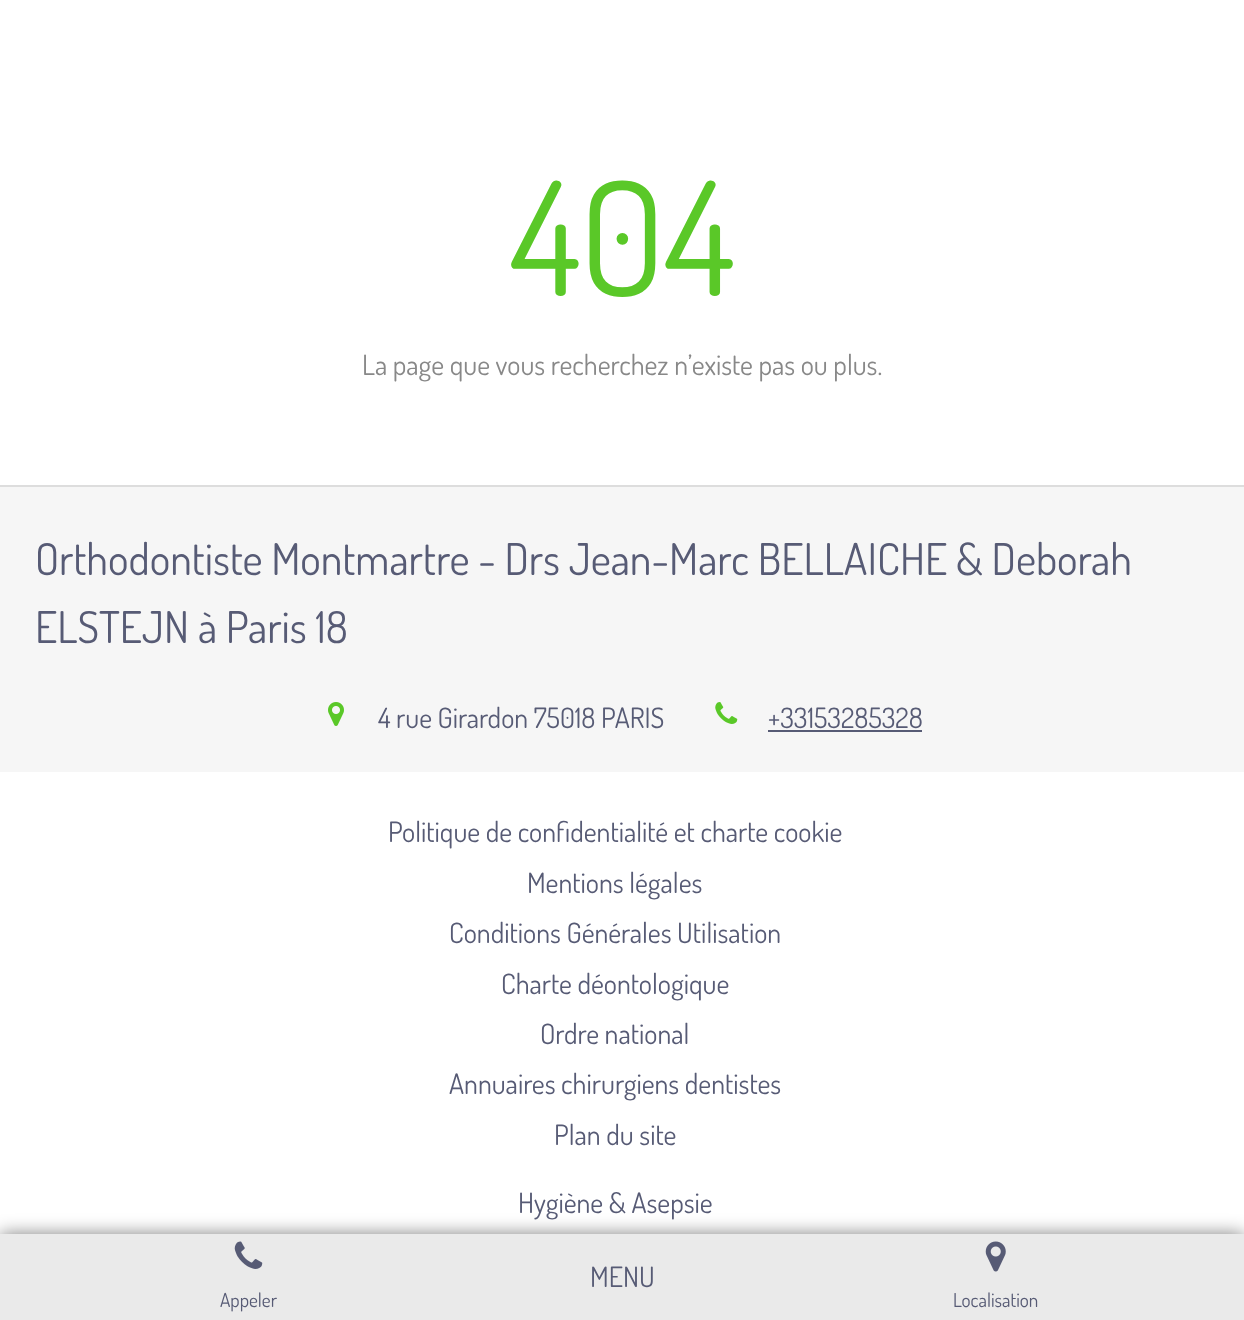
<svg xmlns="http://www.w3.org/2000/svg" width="1244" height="1320">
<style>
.a{font:158px Dosis;fill:#5ac828}
.b{font:28px Dosis;fill:#888}
.c{font:43.75px Dosis;fill:#575b75}
.d{font:28px Dosis;fill:#575b75}
.e{font:19.25px Dosis;fill:#575b75}
</style>
<rect width="100%" height="100%" fill="#fff"/>
<path fill="#ddd" d="M0 485h1244v2H0z"/>
<path fill="#f6f6f6" d="M0 487h1244v285H0z"/>
<image href="1.png" x="328" y="702" width="16" height="24"/>
<image href="2.png" x="715" y="702" width="23" height="22"/>
<path fill="#575b75" d="M768 730h154v2H768z"/>
<path fill="#00000080" filter="blur(9px)" d="M0 1234h1244v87H0z"/>
<path fill="#eaeaea" d="M0 1234h1244v86H0z"/>
<image href="3.png" x="234" y="1241" width="29" height="28"/>
<image href="4.png" x="985" y="1241" width="21" height="31"/>
<text class="a" x="510" y="296">404</text>
<text class="b" x="362" y="375">La page que vous recherchez n’existe pas ou plus.</text>
<text class="c" x="35" y="575">Orthodontiste Montmartre - Drs Jean-Marc BELLAICHE &amp; Deborah</text>
<text class="c" x="35" y="643">ELSTEJN à Paris 18</text>
<text class="d" x="378" y="728">4 rue Girardon 75018 PARIS</text>
<text class="d" x="768" y="728">+33153285328</text>
<text class="d" x="388" y="842">Politique de confidentialité et charte cookie</text>
<text class="d" x="527" y="893">Mentions légales</text>
<text class="d" x="449" y="943">Conditions Générales Utilisation</text>
<text class="d" x="501" y="994">Charte déontologique</text>
<text class="d" x="540" y="1044">Ordre national</text>
<text class="d" x="449" y="1094">Annuaires chirurgiens dentistes</text>
<text class="d" x="554" y="1145">Plan du site</text>
<text class="d" x="518" y="1213">Hygiène &amp; Asepsie</text>
<text class="d" x="590" y="1287">MENU</text>
<text class="e" x="220" y="1307">Appeler</text>
<text class="e" x="953" y="1307">Localisation</text>
</svg>
